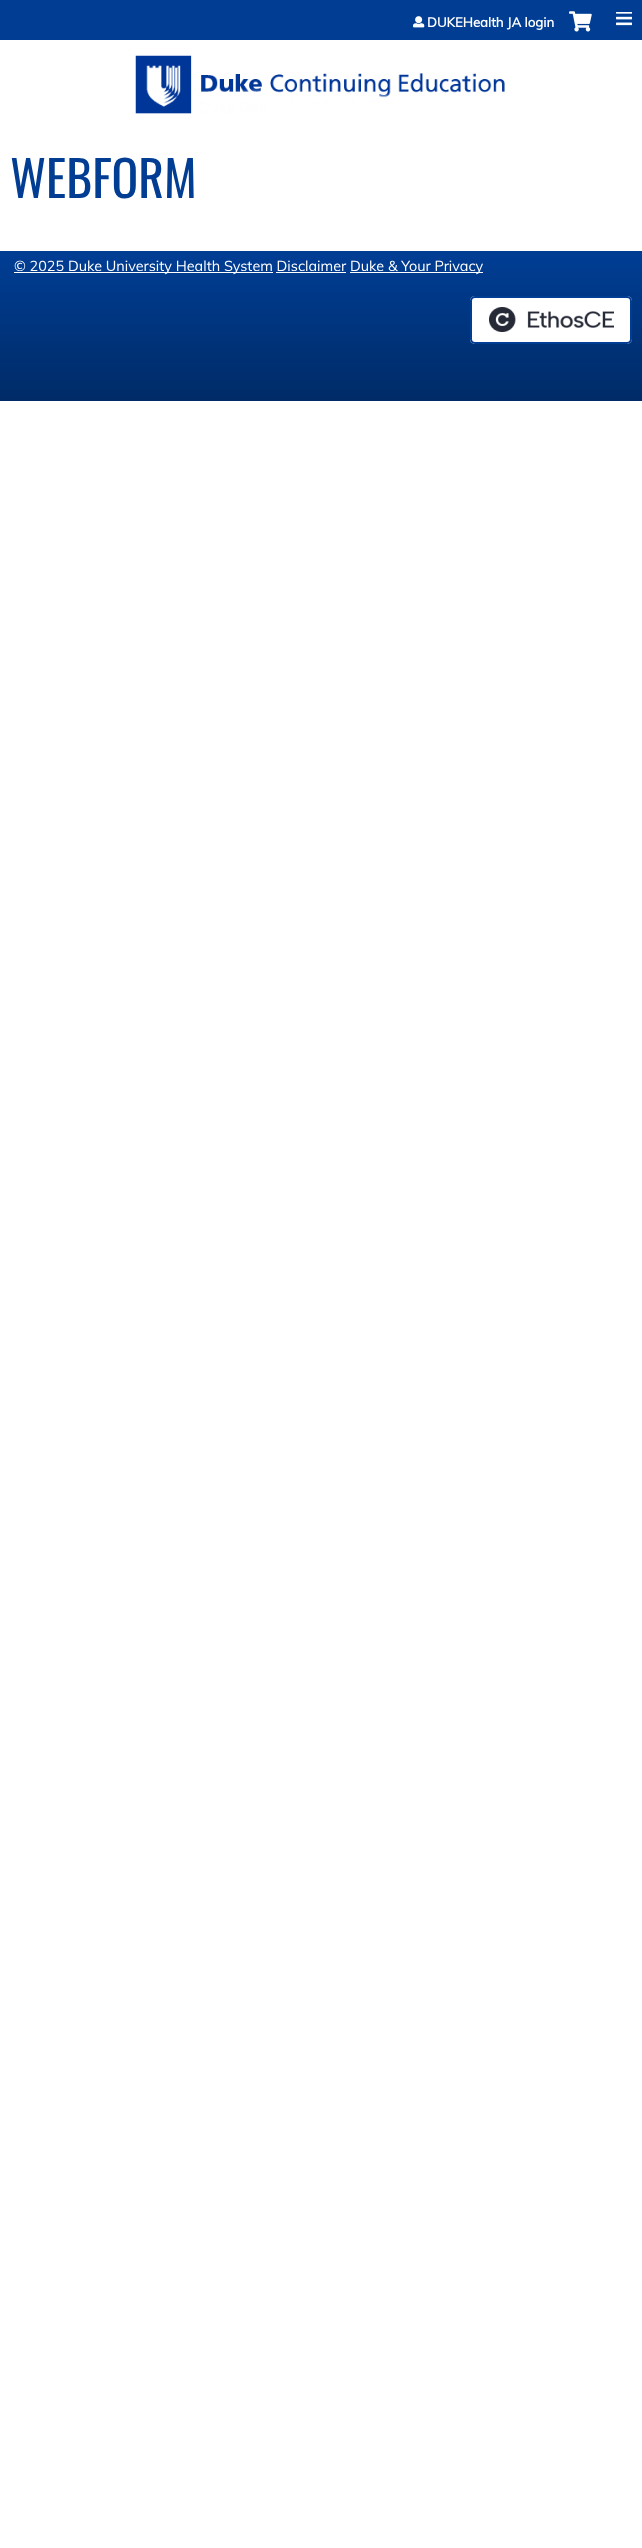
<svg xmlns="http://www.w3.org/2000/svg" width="642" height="2548">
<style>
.a{font:bold 13.25px Muli;fill:#fff}
.b{font:49.5px Oswald;fill:#003d93}
.c{font:14.4px Muli;fill:#fff}
</style>
<defs>
<linearGradient id="g1" gradientUnits="userSpaceOnUse" x1="321" y1="401" x2="321" y2="257"><stop offset="0" stop-color="#002b67"/><stop offset="1" stop-color="#003d93"/></linearGradient>
</defs>
<rect width="100%" height="100%" fill="#fff"/>
<path fill="#003d93" d="M0 0h642v40H0z"/>
<image href="1.png" x="413" y="16" width="12" height="12"/>
<image href="2.png" x="569" y="11" width="23" height="21"/>
<image href="3.png" x="616" y="12" width="16" height="14"/>
<image href="4.png" x="135" y="55" width="370" height="59"/>
<path fill="url(#g1)" d="M0 257h642v144H0z"/>
<path fill="#003d93" d="M0 251h642v6H0z"/>
<path fill="#fff" d="M14 272h259v1H14z"/>
<path fill="#fff" d="M350 272h133v1H350z"/>
<path fill="#fff" d="M276 272h70v1H276z"/>
<rect fill="#fff" x="470" y="296" width="162" height="48" rx="5"/>
<image href="5.png" x="489" y="307" width="125" height="25"/>
<rect fill="none" stroke="#003d93" stroke-width="2" x="471" y="297" width="160" height="46" rx="4"/>
<text class="a" x="427" y="27">DUKEHealth JA login</text>
<text class="b" x="10" y="198">WEBFORM</text>
<text class="c" x="14" y="271">© 2025 Duke University Health System Disclaimer</text>
<text class="c" x="350" y="271">Duke &amp; Your Privacy</text>
</svg>
